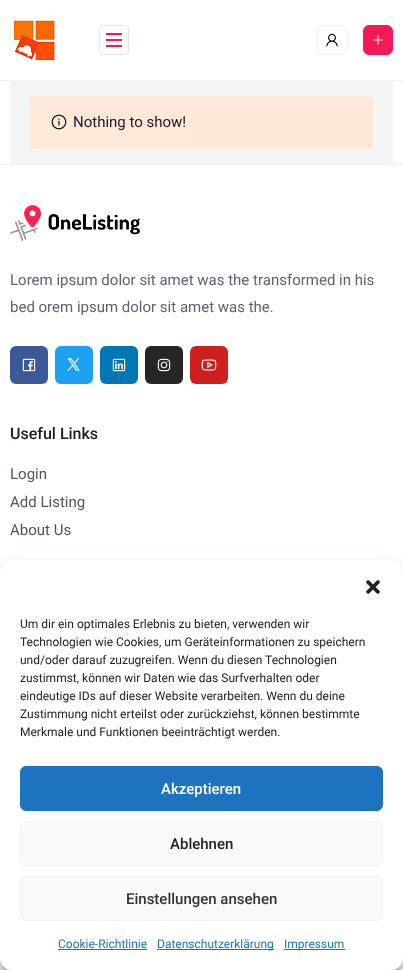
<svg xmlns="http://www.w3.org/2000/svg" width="403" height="970">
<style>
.a{font:15px Roboto;fill:#1a1b29}
.b{font:15px Roboto;fill:#605f74}
.c{font:500 16px Roboto;fill:#1a1b29}
.d{font:15px Roboto;fill:#51526e}
.e{font:12px Roboto;fill:#222}
.f{font:500 15px Roboto;fill:#fff}
.g{font:500 15px Roboto;fill:#222}
.h{font:500 15px Roboto;fill:#333}
.i{font:12px Roboto;fill:#1e73be}
</style>
<rect width="100%" height="100%" fill="#fff"/>
<image href="1.png" x="14" y="20" width="41" height="40"/>
<rect fill="none" stroke="#e1e4ec" x="99.5" y="25.5" width="29" height="29" rx="4.5"/>
<path fill="#f51957" d="M106 33h16v2H106z"/>
<path fill="#f51957" d="M106 39h16v2H106z"/>
<path fill="#f51957" d="M106 45h16v2H106z"/>
<rect fill="none" stroke="#eff1f6" x="317.5" y="25.5" width="30" height="29" rx="5.5"/>
<image href="2.png" x="326" y="33" width="12" height="14"/>
<rect fill="#f51957" stroke="#f51957" x="363.5" y="25.5" width="29" height="29" rx="5.5"/>
<image href="3.png" x="373" y="35" width="10" height="10"/>
<path fill="#eff1f6" d="M0 80h403v1H0z"/>
<rect fill="#f4f4f4" x="10" y="81" width="383" height="83" rx="3"/>
<rect fill="#fee9d9" x="30" y="96" width="343" height="53" rx="5"/>
<image href="4.png" x="51" y="114" width="16" height="16"/>
<path fill="#eff1f6" d="M0 164h403v1H0z"/>
<image href="5.png" x="10" y="205" width="130" height="36"/>
<rect fill="#3b5998" x="10" y="346" width="38" height="38" rx="6"/>
<image href="6.png" x="22" y="358" width="14" height="14"/>
<rect fill="#1da1f2" x="55" y="346" width="38" height="38" rx="6"/>
<image href="7.png" x="67" y="358" width="13" height="13"/>
<rect fill="#0077b5" x="100" y="346" width="38" height="38" rx="6"/>
<image href="8.png" x="112" y="358" width="14" height="14"/>
<rect fill="#262626" x="145" y="346" width="38" height="38" rx="6"/>
<image href="9.png" x="157" y="358" width="14" height="14"/>
<rect fill="#cd201f" x="190" y="346" width="38" height="38" rx="6"/>
<image href="10.png" x="201" y="359" width="16" height="12"/>
<path fill="none" stroke="#e1e4ec" d="M10.5 962.5h244v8H10.5z"/>
<rect fill="#0000003b" filter="blur(3px)" y="566" width="403" height="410" rx="12"/>
<rect fill="#00000030" filter="blur(10px)" y="570" width="403" height="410" rx="12"/>
<rect fill="#fff" y="560" width="403" height="410" rx="12"/>
<image href="11.png" x="366" y="580" width="14" height="14"/>
<rect fill="#1e73be" stroke="#1e73be" x="20.5" y="766.5" width="362" height="44" rx="5.5"/>
<rect fill="#f9f9f9" stroke="#f2f2f2" x="20.5" y="821.5" width="362" height="44" rx="5.5"/>
<rect fill="#f9f9f9" stroke="#f2f2f2" x="20.5" y="876.5" width="362" height="44" rx="5.5"/>
<path fill="#1e73be" d="M58 949h89v1H58z"/>
<path fill="#1e73be" d="M157 949h117v1H157z"/>
<path fill="#1e73be" d="M284 949h61v1H284z"/>
<text class="a" x="73" y="127">Nothing to show!</text>
<text class="b" x="10" y="285">Lorem ipsum dolor sit amet was the transformed in his</text>
<text class="b" x="10" y="312">bed orem ipsum dolor sit amet was the.</text>
<text class="c" x="10" y="439">Useful Links</text>
<text class="d" x="10" y="479">Login</text>
<text class="d" x="10" y="507">Add Listing</text>
<text class="d" x="10" y="535">About Us</text>
<text class="e" x="20" y="628">Um dir ein optimales Erlebnis zu bieten, verwenden wir</text>
<text class="e" x="20" y="646">Technologien wie Cookies, um Geräteinformationen zu speichern</text>
<text class="e" x="20" y="664">und/oder darauf zuzugreifen. Wenn du diesen Technologien</text>
<text class="e" x="20" y="682">zustimmst, können wir Daten wie das Surfverhalten oder</text>
<text class="e" x="20" y="700">eindeutige IDs auf dieser Website verarbeiten. Wenn du deine</text>
<text class="e" x="20" y="718">Zustimmung nicht erteilst oder zurückziehst, können bestimmte</text>
<text class="e" x="20" y="736">Merkmale und Funktionen beeinträchtigt werden.</text>
<text class="f" x="161" y="794">Akzeptieren</text>
<text class="g" x="170" y="849">Ablehnen</text>
<text class="h" x="126" y="904">Einstellungen ansehen</text>
<text class="i" x="58" y="948">Cookie-Richtlinie</text>
<text class="i" x="157" y="948">Datenschutzerklärung</text>
<text class="i" x="284" y="948">Impressum</text>
</svg>
